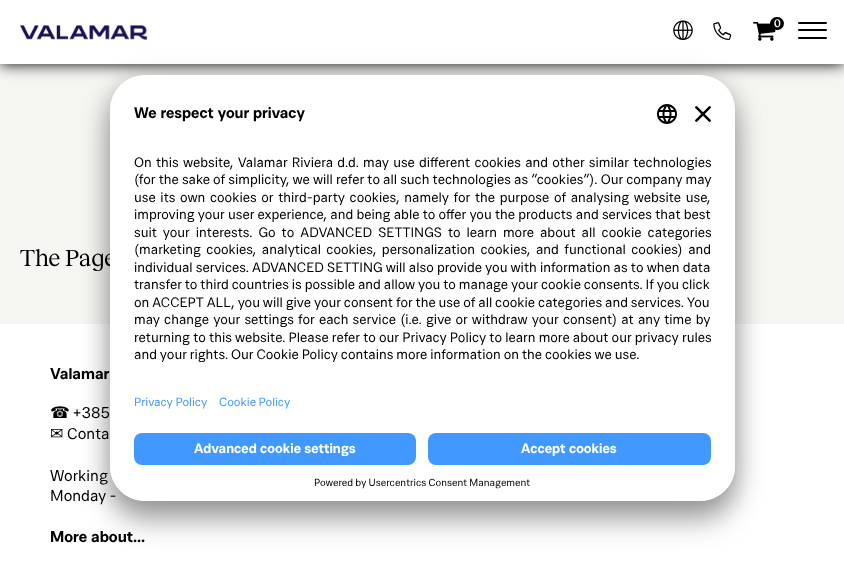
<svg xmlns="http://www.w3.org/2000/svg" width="844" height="576">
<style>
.a{font:bold 11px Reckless;fill:#fff}
.b{font:24px Reckless;fill:#000}
.c{font:bold 16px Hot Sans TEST;fill:#000}
.d{font:16px DejaVu Sans;fill:#000}
.e{font:16px Hot Sans TEST;fill:#000}
.f{font:bold 15.75px Hot Sans TEST;fill:#000}
.g{font:14px Hot Sans TEST;fill:#000}
.h{font:12.25px Hot Sans TEST;fill:#4198ff}
.i{font:bold 14px Hot Sans TEST;fill:#fff}
.j{font:10.5px Hot Sans TEST;fill:#000}
</style>
<defs>
<clipPath id="clip1"><rect x="110" y="75" width="625" height="426" rx="35"/></clipPath>
<clipPath id="clip2"><path d="M145 75h555c19.5 0 35 15.5 35 35v315h-625v-315c0-19.5 15.5-35 35-35z"/></clipPath>
</defs>
<rect width="100%" height="100%" fill="#f5f5f2"/>
<path fill="#000" filter="blur(7.5px)" d="M0 0h844v64H0z"/>
<path fill="#fff" d="M0 0h844v64H0z"/>
<image href="1.png" x="673" y="20" width="20" height="20"/>
<image href="2.png" x="713" y="22" width="19" height="19"/>
<image href="3.png" x="753" y="21" width="23" height="20"/>
<rect fill="#000" x="770" y="17" width="14" height="13" rx="6.5"/>
<rect fill="#000" x="798" y="22" width="29" height="2" rx="1"/>
<rect fill="#000" x="798" y="29" width="29" height="2" rx="1"/>
<rect fill="#000" x="798" y="37" width="29" height="2" rx="1"/>
<image href="4.png" x="20" y="25" width="128" height="15"/>
<path fill="#fff" d="M0 324h844v252H0z"/>
<rect fill="#0000004d" filter="blur(14px)" x="110" y="95" width="625" height="426" rx="35"/>
<rect fill="#00000038" filter="blur(13px)" x="110" y="80" width="625" height="426" rx="35"/>
<text class="a" x="774" y="27">0</text>
<text class="b" x="20" y="266">The Page</text>
<text class="c" x="50" y="379">Valamar</text>
<text class="d" x="50" y="418">☎</text>
<text class="e" x="73" y="418">+385</text>
<text class="d" x="50" y="439">✉</text>
<text class="e" x="67" y="439">Conta</text>
<text class="e" x="50" y="481">Working</text>
<text class="e" x="50" y="501">Monday -</text>
<text class="c" x="50" y="542">More about...</text>
<rect fill="#fff" x="110" y="75" width="625" height="426" rx="35"/>
<g clip-path="url(#clip1)">
<g clip-path="url(#clip2)">
<path fill="#fff" d="M110 76h625v349H110z"/>
</g>
</g>
<text class="f" x="134" y="118">We respect your privacy</text>
<image href="5.png" x="657" y="104" width="20" height="20"/>
<image href="6.png" x="695" y="106" width="16" height="16"/>
<text class="g" x="134" y="167" word-spacing="1.25">On this website, Valamar Riviera d.d. may use different cookies and other similar technologies</text>
<text class="g" x="134" y="184" word-spacing="0.2">(for the sake of simplicity, we will refer to all such technologies as “cookies”). Our company may</text>
<text class="g" x="134" y="202" word-spacing="1.75">use its own cookies or third-party cookies, namely for the purpose of analysing website use,</text>
<text class="g" x="134" y="219" word-spacing="0.3">improving your user experience, and being able to offer you the products and services that best</text>
<text class="g" x="134" y="237" word-spacing="3.1">suit your interests. Go to ADVANCED SETTINGS to learn more about all cookie categories</text>
<text class="g" x="134" y="254" word-spacing="2.5">(marketing cookies, analytical cookies, personalization cookies, and functional cookies) and</text>
<text class="g" x="134" y="272" word-spacing="0.25">individual services. ADVANCED SETTING will also provide you with information as to when data</text>
<text class="g" x="134" y="289">transfer to third countries is possible and allow you to manage your cookie consents. If you click</text>
<text class="g" x="134" y="307">on ACCEPT ALL, you will give your consent for the use of all cookie categories and services. You</text>
<text class="g" x="134" y="324" word-spacing="1.25">may change your settings for each service (i.e. give or withdraw your consent) at any time by</text>
<text class="g" x="134" y="342" word-spacing="0.25">returning to this website. Please refer to our Privacy Policy to learn more about our privacy rules</text>
<text class="g" x="134" y="359">and your rights. Our Cookie Policy contains more information on the cookies we use.</text>
<text class="h" x="134" y="406">Privacy Policy</text>
<text class="h" x="219" y="406">Cookie Policy</text>
<path fill="#fff" d="M110 425h625v41c0 19.5-15.5 35-35 35h-555c-19.5 0-35-15.5-35-35z"/>
<rect fill="#4198ff" x="134" y="433" width="282" height="32" rx="8"/>
<text class="i" x="194" y="453">Advanced cookie settings</text>
<rect fill="#4198ff" x="428" y="433" width="283" height="32" rx="8"/>
<text class="i" x="521" y="453">Accept cookies</text>
<text class="j" x="314" y="486">Powered by Usercentrics Consent Management</text>
</svg>
